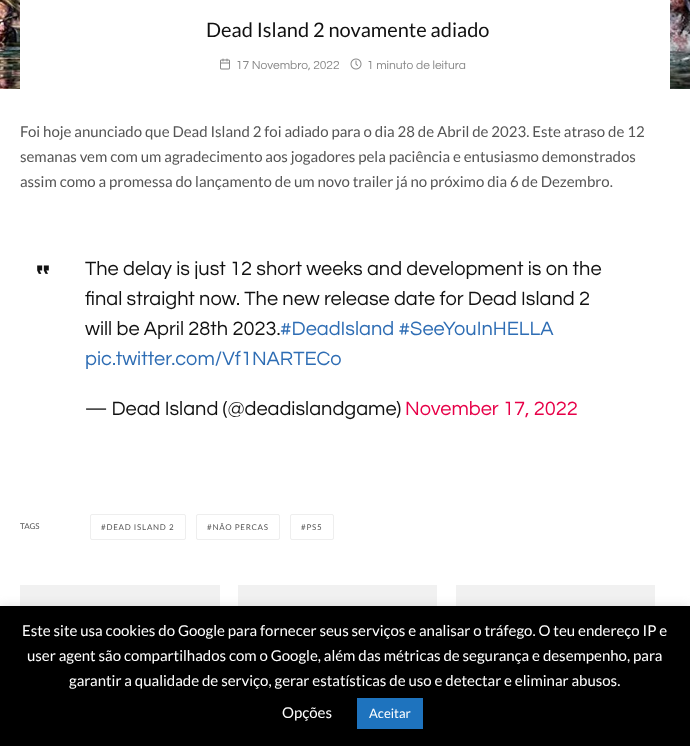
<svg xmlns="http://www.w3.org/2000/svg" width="690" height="746">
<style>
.a{font:20px Lato;fill:#111}
.b{font:12px Questrial;fill:#888}
.c{font:15px Lato;fill:#555}
.d{font:20px Questrial;fill:#111}
.e{font:20px Questrial;fill:#2e6db4}
.f{font:20px Questrial;fill:#e70048}
.g{font:8px Lato;fill:#555}
.h{font:8px Lato;letter-spacing:0.75px;fill:#555}
.i{font:15px Lato;fill:#fff}
.j{font:13px Lato;fill:#fff}
</style>
<rect width="100%" height="100%" fill="#fff"/>
<image href="1.png" x="0" y="0" width="690" height="89"/>
<path fill="#fff" d="M20 0h650v89H20z"/>
<image href="2.png" x="220" y="58" width="10" height="12"/>
<image href="3.png" x="350" y="58" width="12" height="12"/>
<image href="4.png" x="37" y="265" width="12" height="9"/>
<rect fill="none" stroke="#eee" x="90.5" y="514.5" width="95" height="25" rx="1.5"/>
<rect fill="none" stroke="#eee" x="196.5" y="514.5" width="83" height="25" rx="1.5"/>
<rect fill="none" stroke="#eee" x="290.5" y="514.5" width="43" height="25" rx="1.5"/>
<path fill="#f1f1f1" d="M20 585h200v21H20z"/>
<path fill="#f1f1f1" d="M238 585h199v21H238z"/>
<path fill="#f1f1f1" d="M456 585h199v21H456z"/>
<path fill="#acabab4d" filter="blur(5px)" d="M0 605h690v140H0z"/>
<path fill="#000" d="M0 606h690v140H0z"/>
<path fill="#1e73be" d="M357 698h66v31H357z"/>
<text class="a" x="206" y="37">Dead Island 2 novamente adiado</text>
<text class="b" x="236" y="69">17 Novembro, 2022</text>
<text class="b" x="367" y="69">1 minuto de leitura</text>
<text class="c" x="20" y="137">Foi hoje anunciado que Dead Island 2 foi adiado para o dia 28 de Abril de 2023. Este atraso de 12</text>
<text class="c" x="20" y="162">semanas vem com um agradecimento aos jogadores pela paciência e entusiasmo demonstrados</text>
<text class="c" x="20" y="187">assim como a promessa do lançamento de um novo trailer já no próximo dia 6 de Dezembro.</text>
<text class="d" x="85" y="275">The delay is just 12 short weeks and development is on the</text>
<text class="d" x="85" y="305">final straight now. The new release date for Dead Island 2</text>
<text class="d" x="85" y="335">will be April 28th 2023.</text>
<text class="e" x="280" y="335">#DeadIsland #SeeYouInHELLA</text>
<text class="e" x="85" y="365">pic.twitter.com/Vf1NARTECo</text>
<text class="d" x="85" y="415">— Dead Island (@deadislandgame)</text>
<text class="f" x="405" y="415">November 17, 2022</text>
<text class="g" x="20" y="529">TAGS</text>
<text class="h" x="101" y="530">#DEAD ISLAND 2</text>
<text class="h" x="207" y="530">#NÃO PERCAS</text>
<text class="h" x="301" y="530">#PS5</text>
<text class="i" x="22" y="636">Este site usa cookies do Google para fornecer seus serviços e analisar o tráfego. O teu endereço IP e</text>
<text class="i" x="27" y="661">user agent são compartilhados com o Google, além das métricas de segurança e desempenho, para</text>
<text class="i" x="69" y="686">garantir a qualidade de serviço, gerar estatísticas de uso e detectar e eliminar abusos.</text>
<text class="i" x="282" y="718">Opções</text>
<text class="j" x="369" y="718">Aceitar</text>
</svg>
